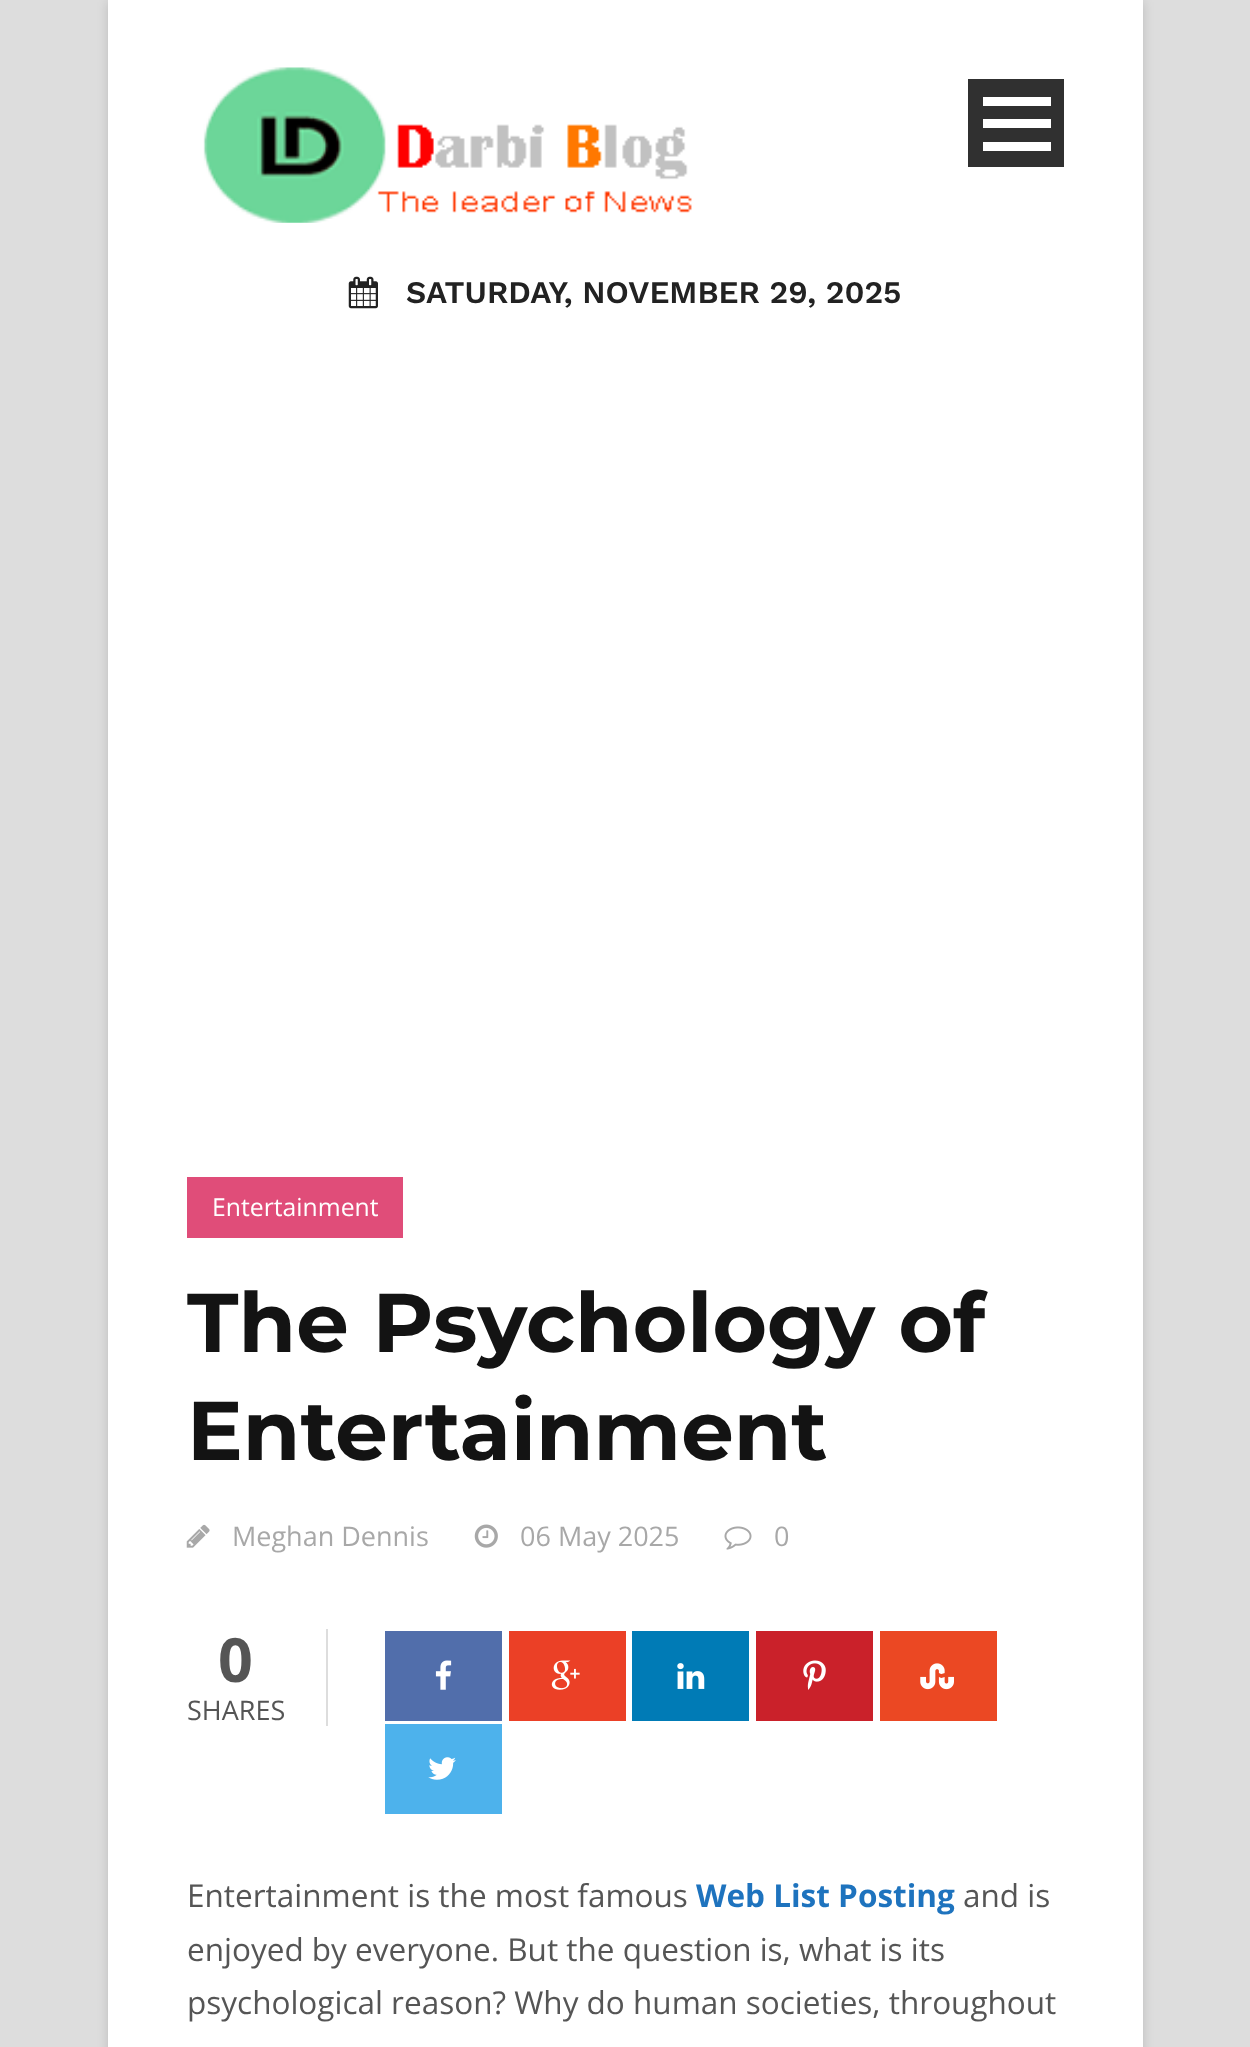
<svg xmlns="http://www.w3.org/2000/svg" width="1250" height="2047">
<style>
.a{font:600 31.5px Work Sans;fill:#222}
.b{font:24.75px Open Sans;fill:#fff}
.c{font:bold 83.25px Montserrat;fill:#131313}
.d{font:27px Open Sans;fill:#a8a8a8}
.e{font:bold 61px Open Sans;fill:#555}
.f{font:27px Open Sans;fill:#555}
.g{font:31.5px Open Sans;fill:#555}
.h{font:bold 31.5px Open Sans;fill:#1e73be}
</style>
<rect width="100%" height="100%" fill="#ddd"/>
<path fill="#00000026" filter="blur(5.5px)" d="M108 2h1035v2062H108z"/>
<path fill="#fff" d="M108 0h1035v2047H108z"/>
<image href="1.png" x="203" y="67" width="489" height="156"/>
<path fill="#303030" d="M968 79h96v88H968z"/>
<path fill="#fff" d="M983 142h68v9H983z"/>
<path fill="#fff" d="M983 119h68v9H983z"/>
<path fill="#fff" d="M983 97h68v9H983z"/>
<image href="2.png" x="348" y="276" width="30" height="33"/>
<path fill="#e04d79" d="M187 1177h216v61H187z"/>
<image href="3.png" x="186" y="1524" width="24" height="24"/>
<image href="4.png" x="474" y="1524" width="24" height="24"/>
<image href="5.png" x="724" y="1526" width="28" height="24"/>
<path fill="#ddd" d="M326 1629h2v97H326z"/>
<path fill="#516eab" d="M385 1631h117v90H385z"/>
<image href="6.png" x="435" y="1660" width="17" height="30"/>
<path fill="#eb4026" d="M509 1631h117v90H509z"/>
<image href="7.png" x="551" y="1660" width="29" height="30"/>
<path fill="#007bb6" d="M632 1631h117v90H632z"/>
<image href="8.png" x="677" y="1663" width="28" height="26"/>
<path fill="#ca212a" d="M756 1631h117v90H756z"/>
<image href="9.png" x="803" y="1660" width="23" height="30"/>
<path fill="#eb4823" d="M880 1631h117v90H880z"/>
<image href="10.png" x="920" y="1663" width="34" height="27"/>
<path fill="#4db2ec" d="M385 1724h117v90H385z"/>
<image href="11.png" x="428" y="1757" width="28" height="23"/>
<text class="a" x="406" y="303">SATURDAY, NOVEMBER 29, 2025</text>
<text class="b" x="212" y="1216">Entertainment</text>
<text class="c" x="187" y="1352">The Psychology of</text>
<text class="c" x="187" y="1460">Entertainment</text>
<text class="d" x="232" y="1546">Meghan Dennis</text>
<text class="d" x="520" y="1546">06 May 2025</text>
<text class="d" x="774" y="1546">0</text>
<text class="e" x="218" y="1682">0</text>
<text class="f" x="187" y="1720">SHARES</text>
<text class="g" x="187" y="1907">Entertainment is the most famous</text>
<text class="h" x="696" y="1907">Web List Posting</text>
<text class="g" x="963" y="1907">and is</text>
<text class="g" x="187" y="1961">enjoyed by everyone. But the question is, what is its</text>
<text class="g" x="187" y="2014">psychological reason? Why do human societies, throughout</text>
</svg>
